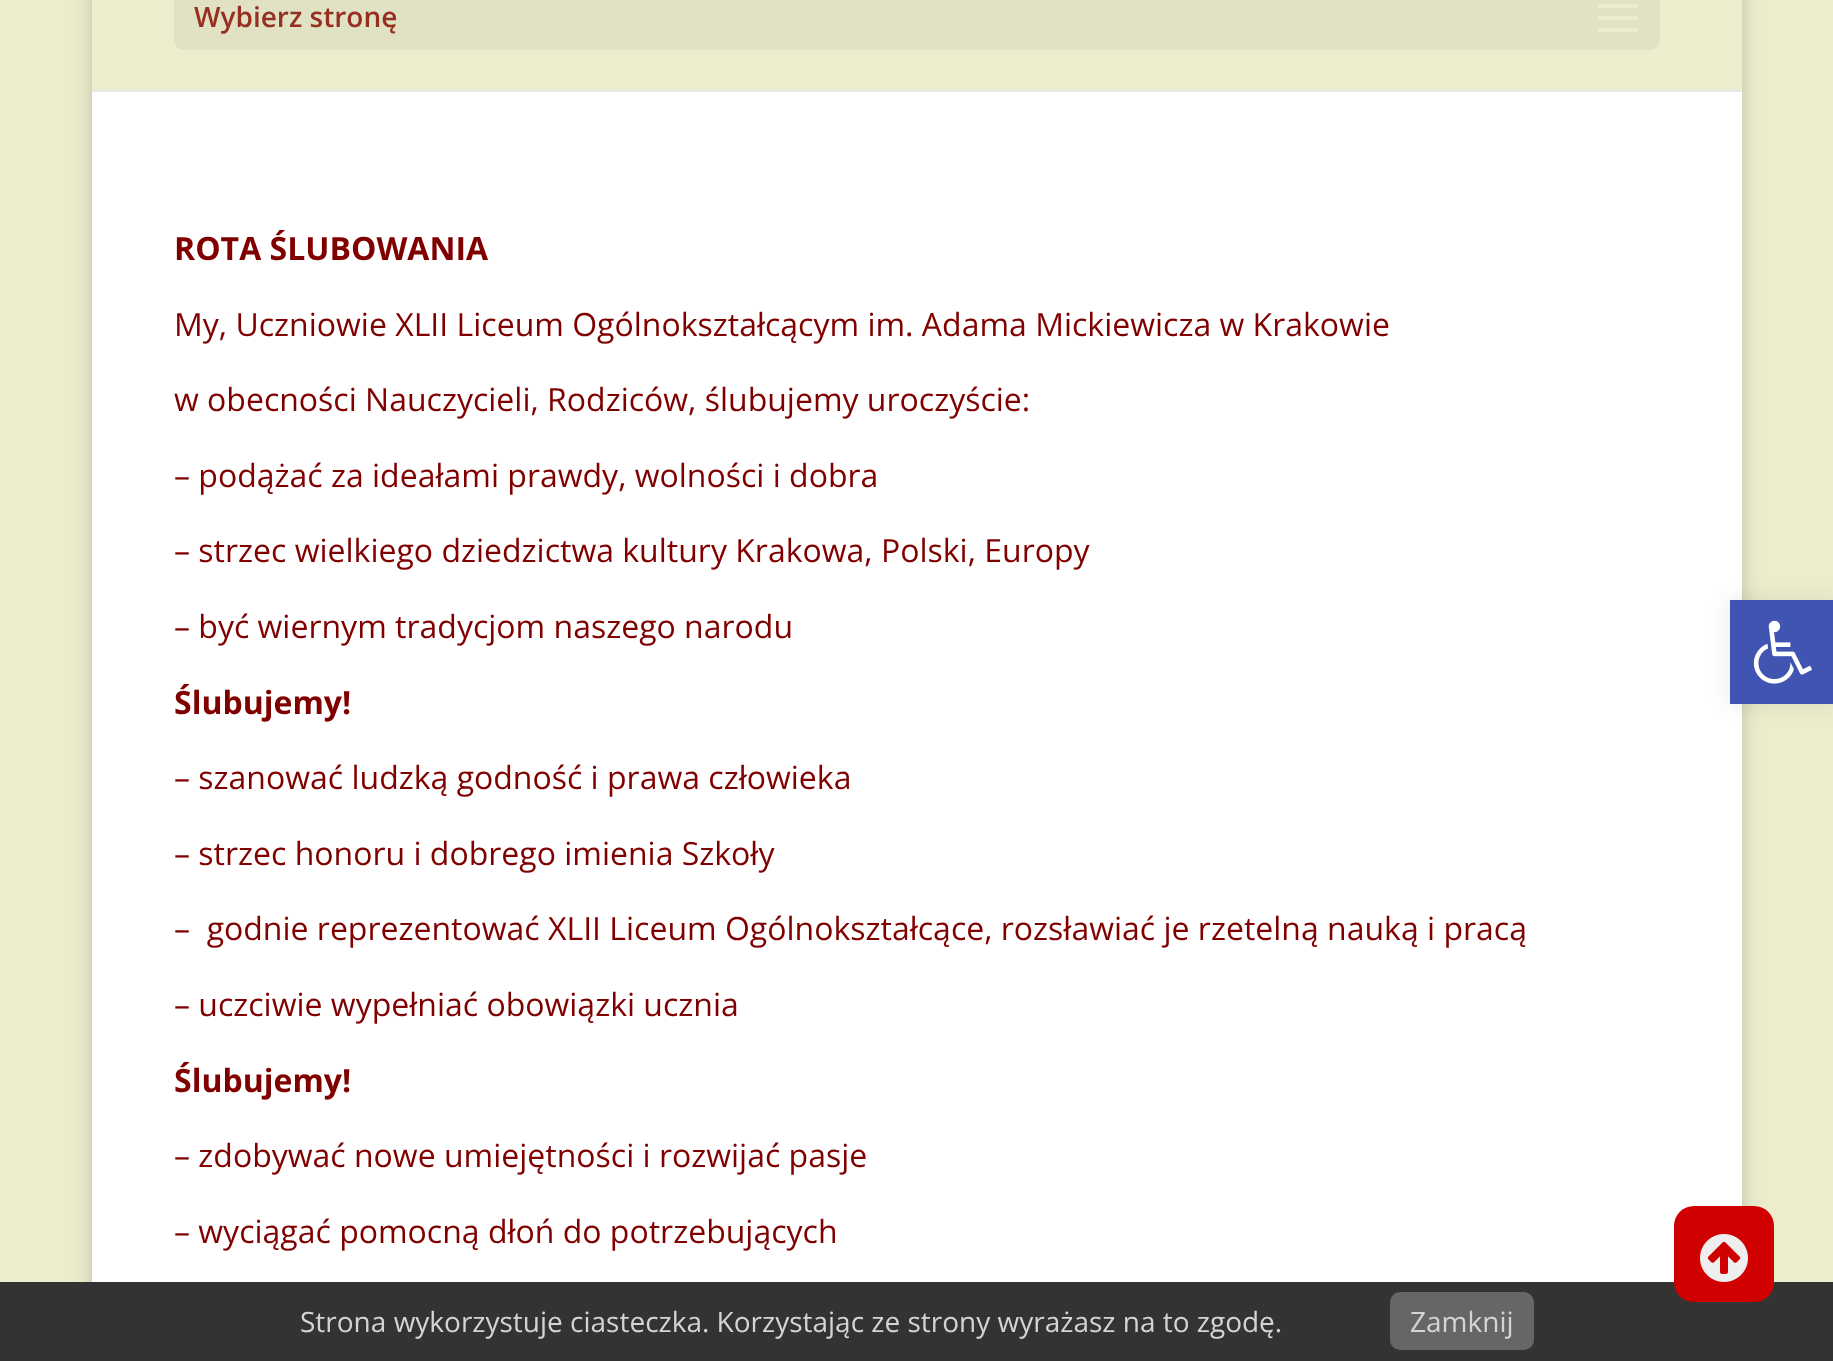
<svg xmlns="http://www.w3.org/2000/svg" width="1833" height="1361">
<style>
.a{font:600 28px Open Sans;fill:#962f21}
.b{font:bold 32px Open Sans;fill:#800000}
.c{font:32px Open Sans;fill:#800000}
.d{font:28px Open Sans;fill:#d4d4d4}
</style>
<rect width="100%" height="100%" fill="#ededce"/>
<path fill="#00000033" filter="blur(10px)" d="M92 -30h1650v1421H92z"/>
<path fill="#e6e6e6" d="M92 90h1650v2H92z"/>
<path fill="#ededce" d="M92 0h1650v90H92z"/>
<rect fill="#e1e1c4" x="174" y="-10" width="1486" height="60" rx="10"/>
<image href="1.png" x="1598" y="4" width="40" height="28"/>
<path fill="#fff" d="M92 92h1650v1190H92z"/>
<path fill="#0000001a" filter="blur(10px)" d="M1730 600h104v104H1730z"/>
<path fill="#4054b2" d="M1730 600h103v104H1730z"/>
<image href="2.png" x="1753" y="620" width="59" height="64"/>
<path fill="#333" d="M0 1282h1833v79H0z"/>
<rect fill="#d10000" x="1674" y="1206" width="100" height="96" rx="20"/>
<image href="3.png" x="1700" y="1234" width="48" height="48"/>
<rect fill="#666" x="1390" y="1292" width="144" height="58" rx="10"/>
<text class="a" x="194" y="27">Wybierz stronę</text>
<text class="b" x="174" y="260">ROTA ŚLUBOWANIA</text>
<text class="c" x="174" y="336">My, Uczniowie XLII Liceum Ogólnokształcącym im. Adama Mickiewicza w Krakowie</text>
<text class="c" x="174" y="411">w obecności Nauczycieli, Rodziców, ślubujemy uroczyście:</text>
<text class="c" x="174" y="487">– podążać za ideałami prawdy, wolności i dobra</text>
<text class="c" x="174" y="562">– strzec wielkiego dziedzictwa kultury Krakowa, Polski, Europy</text>
<text class="c" x="174" y="638">– być wiernym tradycjom naszego narodu</text>
<text class="b" x="174" y="714">Ślubujemy!</text>
<text class="c" x="174" y="789">– szanować ludzką godność i prawa człowieka</text>
<text class="c" x="174" y="865">– strzec honoru i dobrego imienia Szkoły</text>
<text class="c" xml:space="preserve" x="174" y="940">–  godnie reprezentować XLII Liceum Ogólnokształcące, rozsławiać je rzetelną nauką i pracą</text>
<text class="c" x="174" y="1016">– uczciwie wypełniać obowiązki ucznia</text>
<text class="b" x="174" y="1092">Ślubujemy!</text>
<text class="c" x="174" y="1167">– zdobywać nowe umiejętności i rozwijać pasje</text>
<text class="c" x="174" y="1243">– wyciągać pomocną dłoń do potrzebujących</text>
<text class="d" x="300" y="1332">Strona wykorzystuje ciasteczka. Korzystając ze strony wyrażasz na to zgodę.</text>
<text class="d" x="1410" y="1332">Zamknij</text>
</svg>
